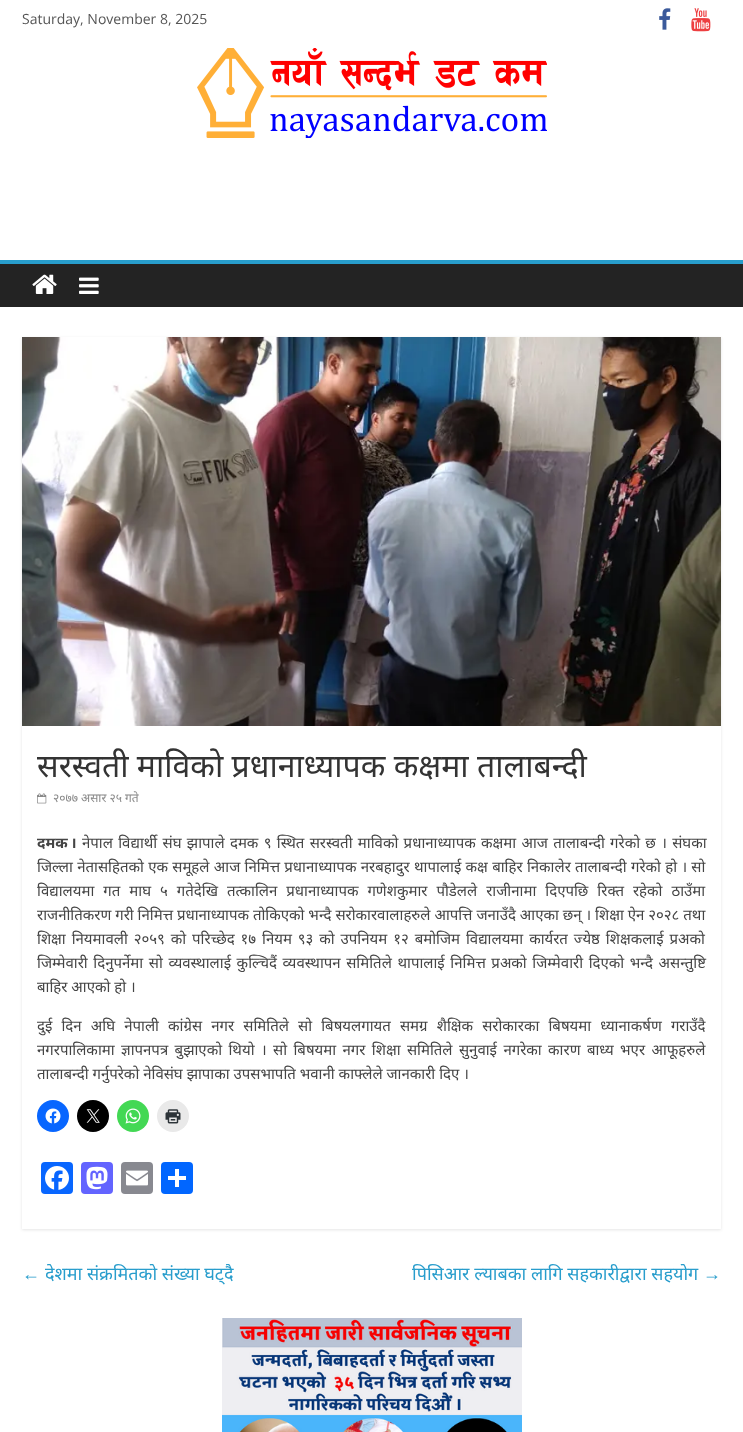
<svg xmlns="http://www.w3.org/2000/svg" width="743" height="1432">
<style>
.a{font:14px Open Sans;fill:#555}
.b{font:32px Noto Sans;fill:#333}
.c{font:12px Noto Sans;fill:#888}
.d{font:bold 15px Noto Sans;fill:#444}
.e{font:15px Noto Sans;fill:#444}
.f{font:18px Liberation Serif;fill:#289dcc}
.g{font:18px Noto Sans;fill:#289dcc}
</style>
<defs>
<clipPath id="clip1"><path d="M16 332h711v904h-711zm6 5h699v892h-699z" clip-rule="evenodd"/></clipPath>
</defs>
<rect width="100%" height="100%" fill="#fff"/>
<image href="1.png" x="659" y="8" width="12" height="22"/>
<image href="2.png" x="691" y="8" width="20" height="24"/>
<image href="3.png" x="197" y="48" width="350" height="90"/>
<path fill="#232323" d="M0 264h743v43H0z"/>
<path fill="#289dcc" d="M0 260h743v4H0z"/>
<image href="4.png" x="32" y="274" width="25" height="20"/>
<image href="5.png" x="79" y="277" width="20" height="17"/>
<g clip-path="url(#clip1)">
<path fill="#0000001a" filter="blur(1.5px)" d="M22 338h699v892H22z"/>
</g>
<image href="6.png" x="22" y="337" width="699" height="389"/>
<image href="7.png" x="37" y="793" width="10" height="11"/>
<circle fill="#0866ff" cx="53" cy="1116" r="16"/>
<image href="8.png" x="45" y="1108" width="16" height="16"/>
<circle fill="#000" cx="93" cy="1116" r="16"/>
<image href="9.png" x="86" y="1109" width="14" height="14"/>
<circle fill="#43d854" cx="133" cy="1116" r="16"/>
<image href="10.png" x="125" y="1108" width="16" height="16"/>
<circle fill="#e9e9e9" cx="173" cy="1116" r="16"/>
<image href="11.png" x="165" y="1109" width="16" height="15"/>
<rect fill="#0866ff" x="41" y="1162" width="32" height="32" rx="4"/>
<image href="12.png" x="45" y="1166" width="24" height="24"/>
<rect fill="#6364ff" x="81" y="1162" width="32" height="32" rx="4"/>
<image href="13.png" x="86" y="1166" width="22" height="24"/>
<rect fill="#888990" x="121" y="1162" width="32" height="32" rx="4"/>
<image href="14.png" x="126" y="1170" width="22" height="16"/>
<rect fill="#0166ff" x="161" y="1162" width="32" height="32" rx="4"/>
<path fill="#fff" d="M175 1169h4v18H175z"/>
<path fill="#fff" d="M168 1176h18v4H168z"/>
<image href="15.png" x="222" y="1318" width="300" height="114"/>
<text class="a" x="22" y="24">Saturday, November 8, 2025</text>
<text class="b" x="37" y="777">सरस्वती माविको प्रधानाध्यापक कक्षमा तालाबन्दी</text>
<text class="c" x="53" y="802">२०७७ असार २५ गते</text>
<text class="d" x="37" y="848" word-spacing="-1">दमक ।</text>
<text class="e" x="82" y="848" word-spacing="1.4">नेपाल विद्यार्थी संघ झापाले दमक ९ स्थित सरस्वती माविको प्रधानाध्यापक कक्षमा आज तालाबन्दी गरेको छ । संघका</text>
<text class="e" x="37" y="872" word-spacing="0.4">जिल्ला नेतासहितको एक समूहले आज निमित्त प्रधानाध्यापक नरबहादुर थापालाई कक्ष बाहिर निकालेर तालाबन्दी गरेको हो । सो</text>
<text class="e" x="37" y="896" word-spacing="5.1">विद्यालयमा गत माघ ५ गतेदेखि तत्कालिन प्रधानाध्यापक गणेशकुमार पौडेलले राजीनामा दिएपछि रिक्त रहेको ठाउँमा</text>
<text class="e" x="37" y="920">राजनीतिकरण गरी निमित्त प्रधानाध्यापक तोकिएको भन्दै सरोकारवालाहरुले आपत्ति जनाउँदै आएका छन् । शिक्षा ऐन २०२८ तथा</text>
<text class="e" x="37" y="944" word-spacing="2">शिक्षा नियमावली २०५९ को परिच्छेद १७ नियम ९३ को उपनियम १२ बमोजिम विद्यालयमा कार्यरत ज्येष्ठ शिक्षकलाई प्रअको</text>
<text class="e" x="37" y="968" word-spacing="1.7">जिम्मेवारी दिनुपर्नेमा सो व्यवस्थालाई कुल्चिदैं व्यवस्थापन समितिले थापालाई निमित्त प्रअको जिम्मेवारी दिएको भन्दै असन्तुष्टि</text>
<text class="e" x="37" y="992">बाहिर आएको हो ।</text>
<text class="e" x="37" y="1031" word-spacing="5.25">दुई दिन अघि नेपाली कांग्रेस नगर समितिले सो बिषयलगायत समग्र शैक्षिक सरोकारका बिषयमा ध्यानाकर्षण गराउँदै</text>
<text class="e" x="37" y="1055" word-spacing="2.5">नगरपालिकामा ज्ञापनपत्र बुझाएको थियो । सो बिषयमा नगर शिक्षा समितिले सुनुवाई नगरेका कारण बाध्य भएर आफूहरुले</text>
<text class="e" x="37" y="1079">तालाबन्दी गर्नुपरेको नेविसंघ झापाका उपसभापति भवानी काफ्लेले जानकारी दिए ।</text>
<text class="f" x="22" y="1280">←</text>
<text class="g" x="45" y="1280">देशमा संक्रमितको संख्या घट्दै</text>
<text class="g" x="412" y="1280">पिसिआर ल्याबका लागि सहकारीद्वारा सहयोग</text>
<text class="f" x="703" y="1280">→</text>
</svg>
